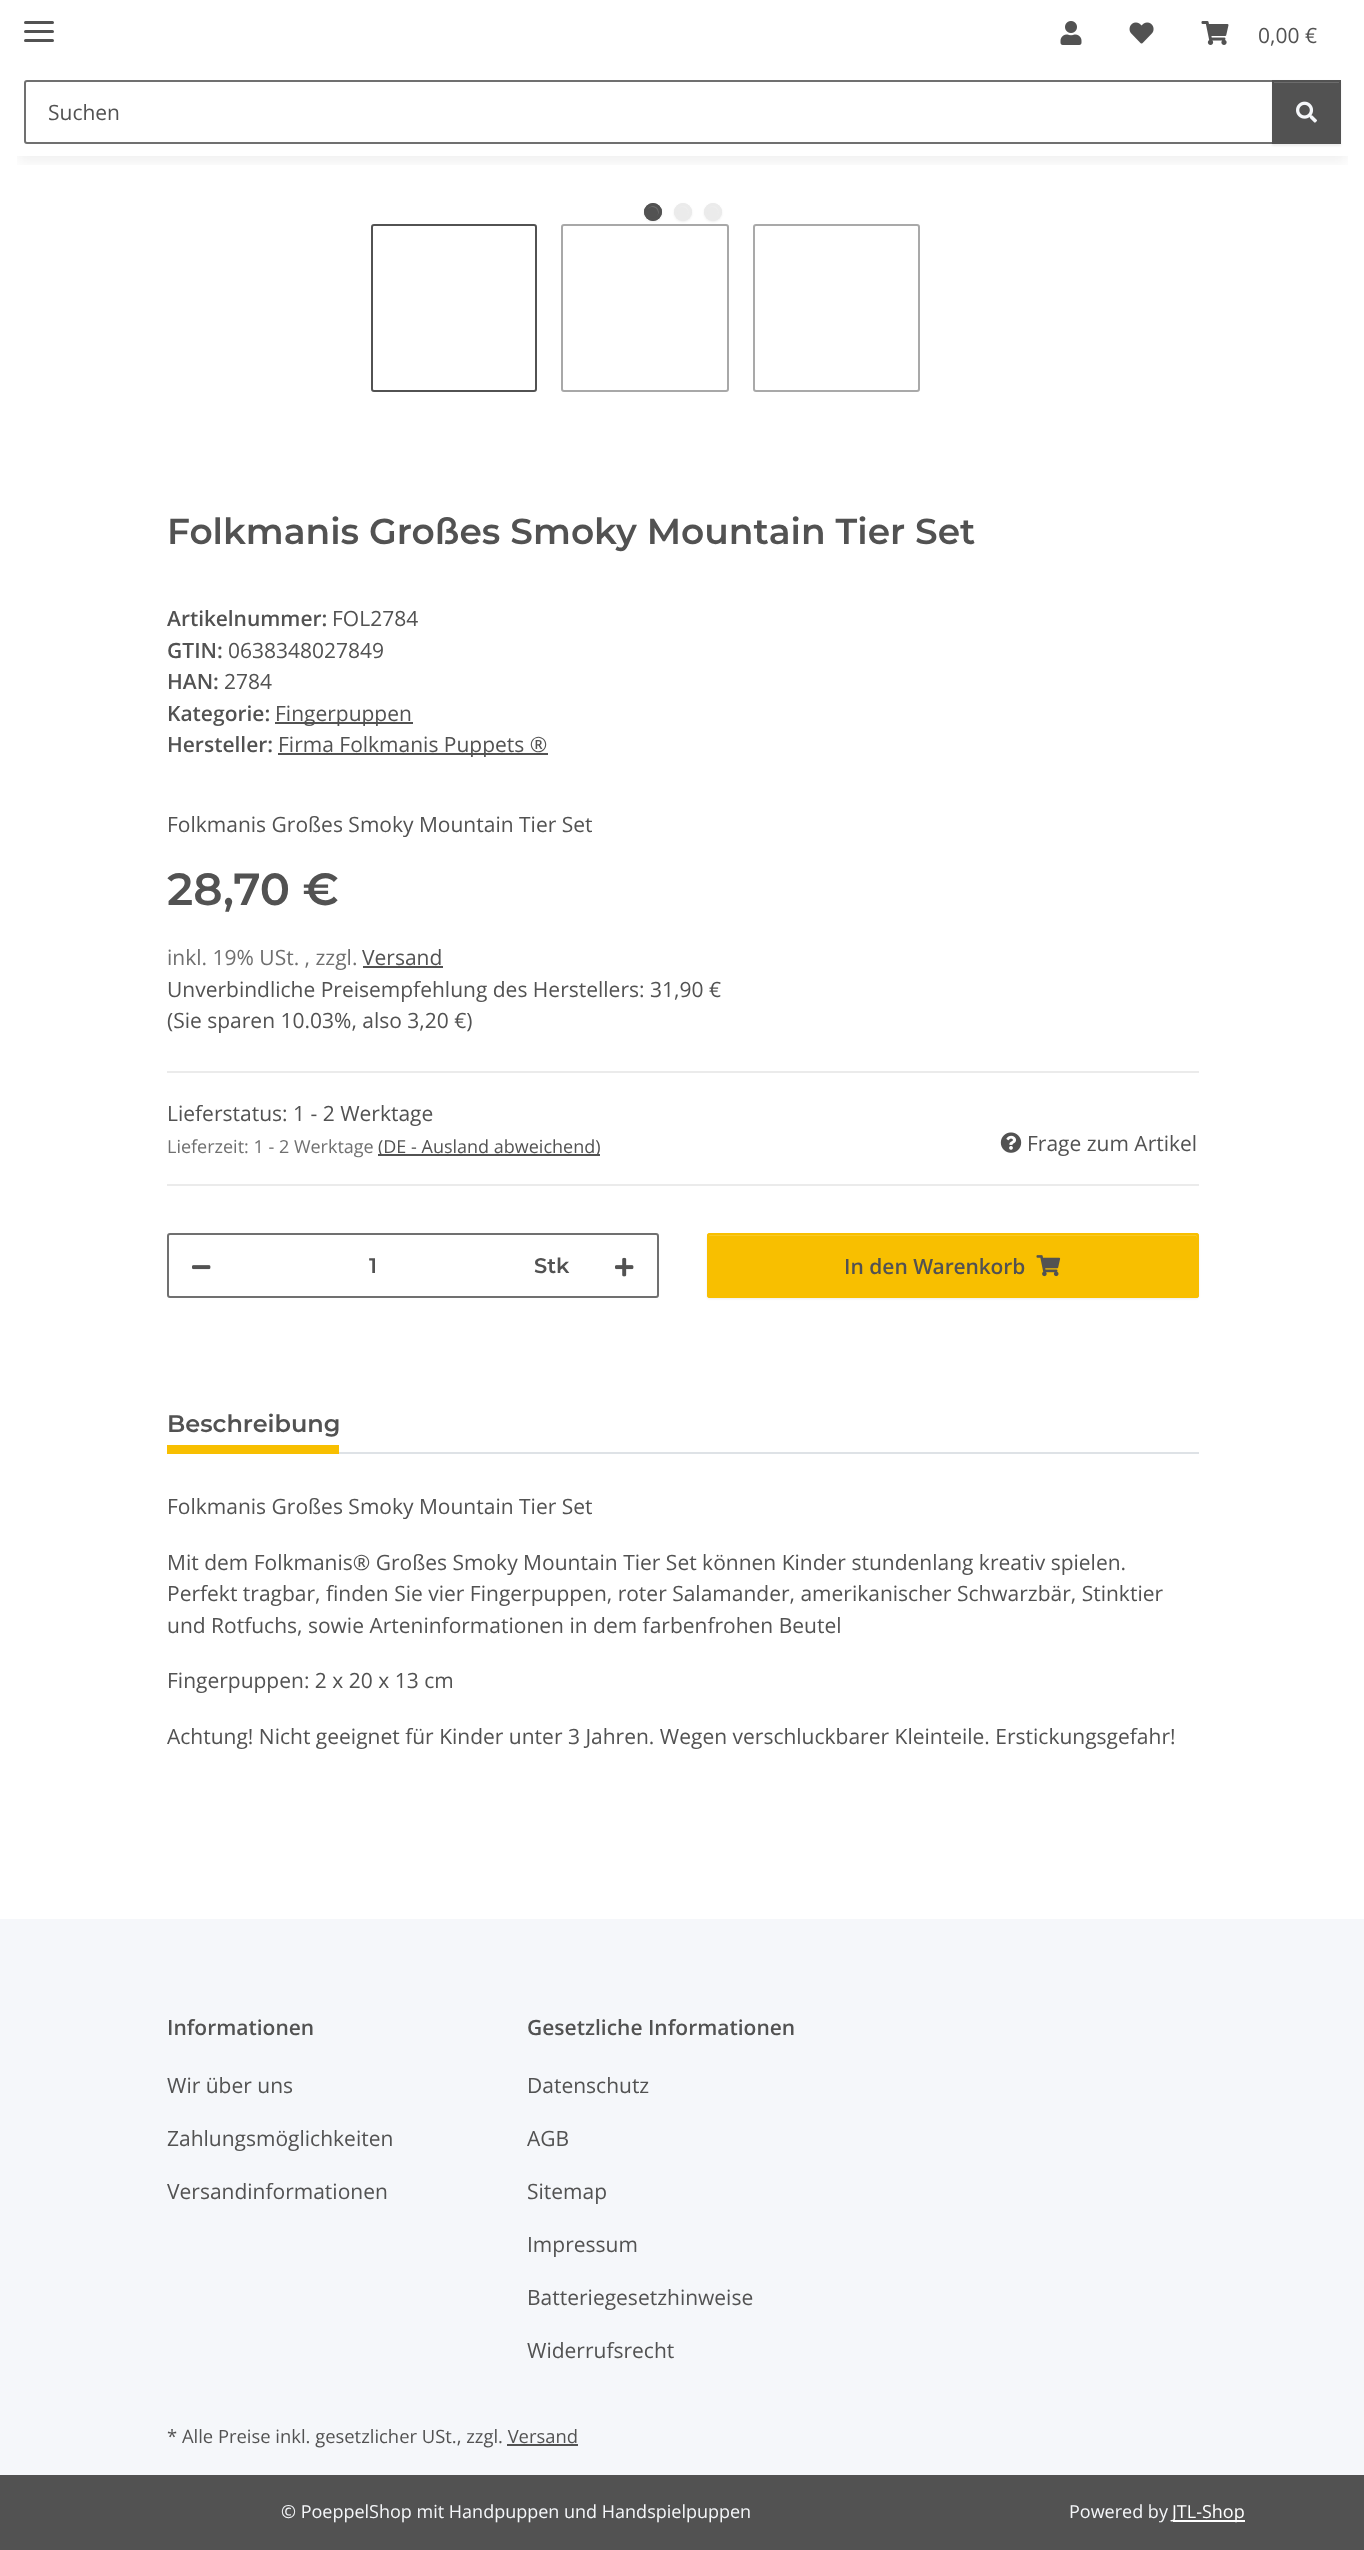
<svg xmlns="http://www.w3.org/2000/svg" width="1364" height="2550">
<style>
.a{font:21px Open Sans;fill:#525252}
.b{font:600 36px Montserrat;fill:#525252}
.c{font:600 21px Open Sans;fill:#525252}
.d{font:600 45px Montserrat;fill:#525252}
.e{font:21px Open Sans;fill:#707070}
.f{font:18px Open Sans;fill:#707070}
.g{font:18px Open Sans;fill:#525252}
.h{font:600 21px Montserrat;fill:#525252}
.i{font:600 24px Montserrat;fill:#525252}
.j{font:18.4px Open Sans;fill:#525252}
.k{font:18px Open Sans;fill:#f5f7fa}
.l{font:18px Open Sans;fill:#fff}
</style>
<defs>
<clipPath id="clip1"><path d="M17 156h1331v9H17z"/></clipPath>
</defs>
<rect width="100%" height="100%" fill="#f5f7fa"/>
<path fill="#fff" d="M0 0h1364v1919H0z"/>
<g clip-path="url(#clip1)">
<path fill="#0000000f" filter="blur(7px)" d="M18 42h1329v120H18z"/>
</g>
<rect fill="#525252" x="24" y="30" width="30" height="3" rx="1.5"/>
<rect fill="#525252" x="24" y="21" width="30" height="3" rx="1.5"/>
<rect fill="#525252" x="24" y="39" width="30" height="3" rx="1.5"/>
<image href="1.png" x="1060" y="21" width="22" height="24"/>
<image href="2.png" x="1129" y="22" width="25" height="22"/>
<image href="3.png" x="1201" y="21" width="28" height="24"/>
<path fill="none" stroke="#707070" stroke-width="2" d="M27 81h1246v62h-1246c-1 0-2-1-2-2v-58c0-1 1-2 2-2z"/>
<path fill="#00000012" filter="blur(1px)" d="M1272 81h69v65H1272z"/>
<path fill="#525252" d="M1274 83h65v59H1274z"/>
<path fill="#6c6c6c" d="M1274 82h66v1H1274z"/>
<path fill="none" stroke="#525252" stroke-width="2" d="M1273 81h67v62H1273z"/>
<image href="4.png" x="1296" y="101" width="21" height="22"/>
<rect fill="#00000012" filter="blur(1px)" x="644" y="204" width="18" height="18" rx="9"/>
<circle fill="#525252" cx="653" cy="212" r="9"/>
<path fill="#6c6c6c" d="M652 207c5.5 0 7.5 6 5 9.5c5-4.5-.5-13-7-10c-1.5 1-2.5 2.5-3 4c1-2 2.5-3.5 5-3.5z"/>
<circle fill="none" stroke="#525252" stroke-width="3" cx="653" cy="212" r="7.5"/>
<rect fill="#00000012" filter="blur(1px)" x="674" y="204" width="18" height="18" rx="9"/>
<circle fill="#ebebeb" cx="683" cy="212" r="9"/>
<path fill="#eee" d="M682 207c5.5 0 7.5 6 5 9.5c5-4.5-.5-13-7-10c-1.5 1-2.5 2.5-3 4c1-2 2.5-3.5 5-3.5z"/>
<circle fill="none" stroke="#ebebeb" stroke-width="3" cx="683" cy="212" r="7.5"/>
<rect fill="#00000012" filter="blur(1px)" x="704" y="204" width="18" height="18" rx="9"/>
<circle fill="#ebebeb" cx="713" cy="212" r="9"/>
<path fill="#eee" d="M712 207c5.5 0 7.5 6 5 9.5c5-4.5-.5-13-7-10c-1.5 1-2.5 2.5-3 4c1-2 2.5-3.5 5-3.5z"/>
<circle fill="none" stroke="#ebebeb" stroke-width="3" cx="713" cy="212" r="7.5"/>
<rect fill="none" stroke="#525252" stroke-width="2" x="372" y="225" width="164" height="166" rx="2"/>
<rect fill="none" stroke="#a8a8a8" stroke-width="2" x="562" y="225" width="166" height="166" rx="2"/>
<rect fill="none" stroke="#a9a9a9" stroke-width="2" x="754" y="225" width="165" height="166" rx="2"/>
<path fill="#525252" d="M275 722h138v2H275z"/>
<path fill="#525252" d="M278 753h270v2H278z"/>
<path fill="#525252" d="M363 966h80v2H363z"/>
<path fill="#ebebeb" d="M167 1071h1032v2H167z"/>
<path fill="#ebebeb" d="M167 1184h1032v2H167z"/>
<path fill="#525252" d="M378 1154h222v2H378z"/>
<image href="5.png" x="1000" y="1132" width="22" height="21"/>
<rect fill="none" stroke="#707070" stroke-width="2" x="168" y="1234" width="490" height="63" rx="2"/>
<image href="6.png" x="192" y="1265" width="19" height="5"/>
<image href="7.png" x="615" y="1257" width="19" height="20"/>
<rect fill="#00000012" filter="blur(1px)" x="707" y="1235" width="492" height="64" rx="3"/>
<rect fill="#f8bf00" x="707" y="1233" width="492" height="65" rx="3"/>
<path fill="#f9c926" d="M710 1236h486l1 2c0-1 0-3-1-3h-486c-2 0-2 2-2 3c0-1 1-2 2-2z"/>
<rect fill="none" stroke="#f8bf00" stroke-width="2" x="708" y="1234" width="490" height="63" rx="2"/>
<image href="8.png" x="1036" y="1255" width="25" height="22"/>
<path fill="#dee2e6" d="M339 1452h860v2H339z"/>
<path fill="#f8bf00" d="M167 1445h172v9H167z"/>
<path fill="#525252" d="M507 2444h71v2H507z"/>
<path fill="#525252" d="M0 2475h1364v75H0z"/>
<path fill="#fff" d="M1173 2520h72v2H1173z"/>
<text class="a" x="1258" y="43">0,00 €</text>
<text class="a" x="48" y="120">Suchen</text>
<text class="b" x="167" y="544">Folkmanis Großes Smoky Mountain Tier Set</text>
<text class="c" x="167" y="626">Artikelnummer:</text>
<text class="a" x="332" y="626">FOL2784</text>
<text class="c" x="167" y="658">GTIN:</text>
<text class="a" x="228" y="658">0638348027849</text>
<text class="c" x="167" y="689">HAN:</text>
<text class="a" x="224" y="689">2784</text>
<text class="c" x="167" y="721">Kategorie:</text>
<text class="a" x="275" y="721">Fingerpuppen</text>
<text class="c" x="167" y="752">Hersteller:</text>
<text class="a" x="278" y="752">Firma Folkmanis Puppets ®</text>
<text class="a" x="167" y="832">Folkmanis Großes Smoky Mountain Tier Set</text>
<text class="d" x="167" y="905">28,70 €</text>
<text class="e" x="167" y="965">inkl. 19% USt. , zzgl.</text>
<text class="a" x="362" y="965">Versand</text>
<text class="a" x="167" y="997">Unverbindliche Preisempfehlung des Herstellers: 31,90 €</text>
<text class="a" x="167" y="1028">(Sie sparen 10.03%, also 3,20 €)</text>
<text class="a" x="167" y="1121">Lieferstatus: 1 - 2 Werktage</text>
<text class="f" x="167" y="1153">Lieferzeit: 1 - 2 Werktage</text>
<text class="g" x="378" y="1153">(DE - Ausland abweichend)</text>
<text class="a" x="1027" y="1151">Frage zum Artikel</text>
<text class="h" x="369" y="1273">1</text>
<text class="h" x="534" y="1273">Stk</text>
<text class="c" x="844" y="1274">In den Warenkorb</text>
<text class="i" x="167" y="1432">Beschreibung</text>
<text class="a" x="167" y="1514">Folkmanis Großes Smoky Mountain Tier Set</text>
<text class="a" x="167" y="1570">Mit dem Folkmanis® Großes Smoky Mountain Tier Set können Kinder stundenlang kreativ spielen.</text>
<text class="a" x="167" y="1601">Perfekt tragbar, finden Sie vier Fingerpuppen, roter Salamander, amerikanischer Schwarzbär, Stinktier</text>
<text class="a" x="167" y="1633">und Rotfuchs, sowie Arteninformationen in dem farbenfrohen Beutel</text>
<text class="a" x="167" y="1688">Fingerpuppen: 2 x 20 x 13 cm</text>
<text class="a" x="167" y="1744">Achtung! Nicht geeignet für Kinder unter 3 Jahren. Wegen verschluckbarer Kleinteile. Erstickungsgefahr!</text>
<text class="c" x="167" y="2035">Informationen</text>
<text class="a" x="167" y="2093">Wir über uns</text>
<text class="a" x="167" y="2146">Zahlungsmöglichkeiten</text>
<text class="a" x="167" y="2199">Versandinformationen</text>
<text class="c" x="527" y="2035">Gesetzliche Informationen</text>
<text class="a" x="527" y="2093">Datenschutz</text>
<text class="a" x="527" y="2146">AGB</text>
<text class="a" x="527" y="2199">Sitemap</text>
<text class="a" x="527" y="2252">Impressum</text>
<text class="a" x="527" y="2305">Batteriegesetzhinweise</text>
<text class="a" x="527" y="2358">Widerrufsrecht</text>
<text class="j" x="167" y="2443">* Alle Preise inkl. gesetzlicher USt., zzgl. Versand</text>
<text class="k" x="281" y="2518">© PoeppelShop mit Handpuppen und Handspielpuppen</text>
<text class="k" x="1069" y="2518">Powered by</text>
<text class="l" x="1172" y="2518">JTL-Shop</text>
</svg>
